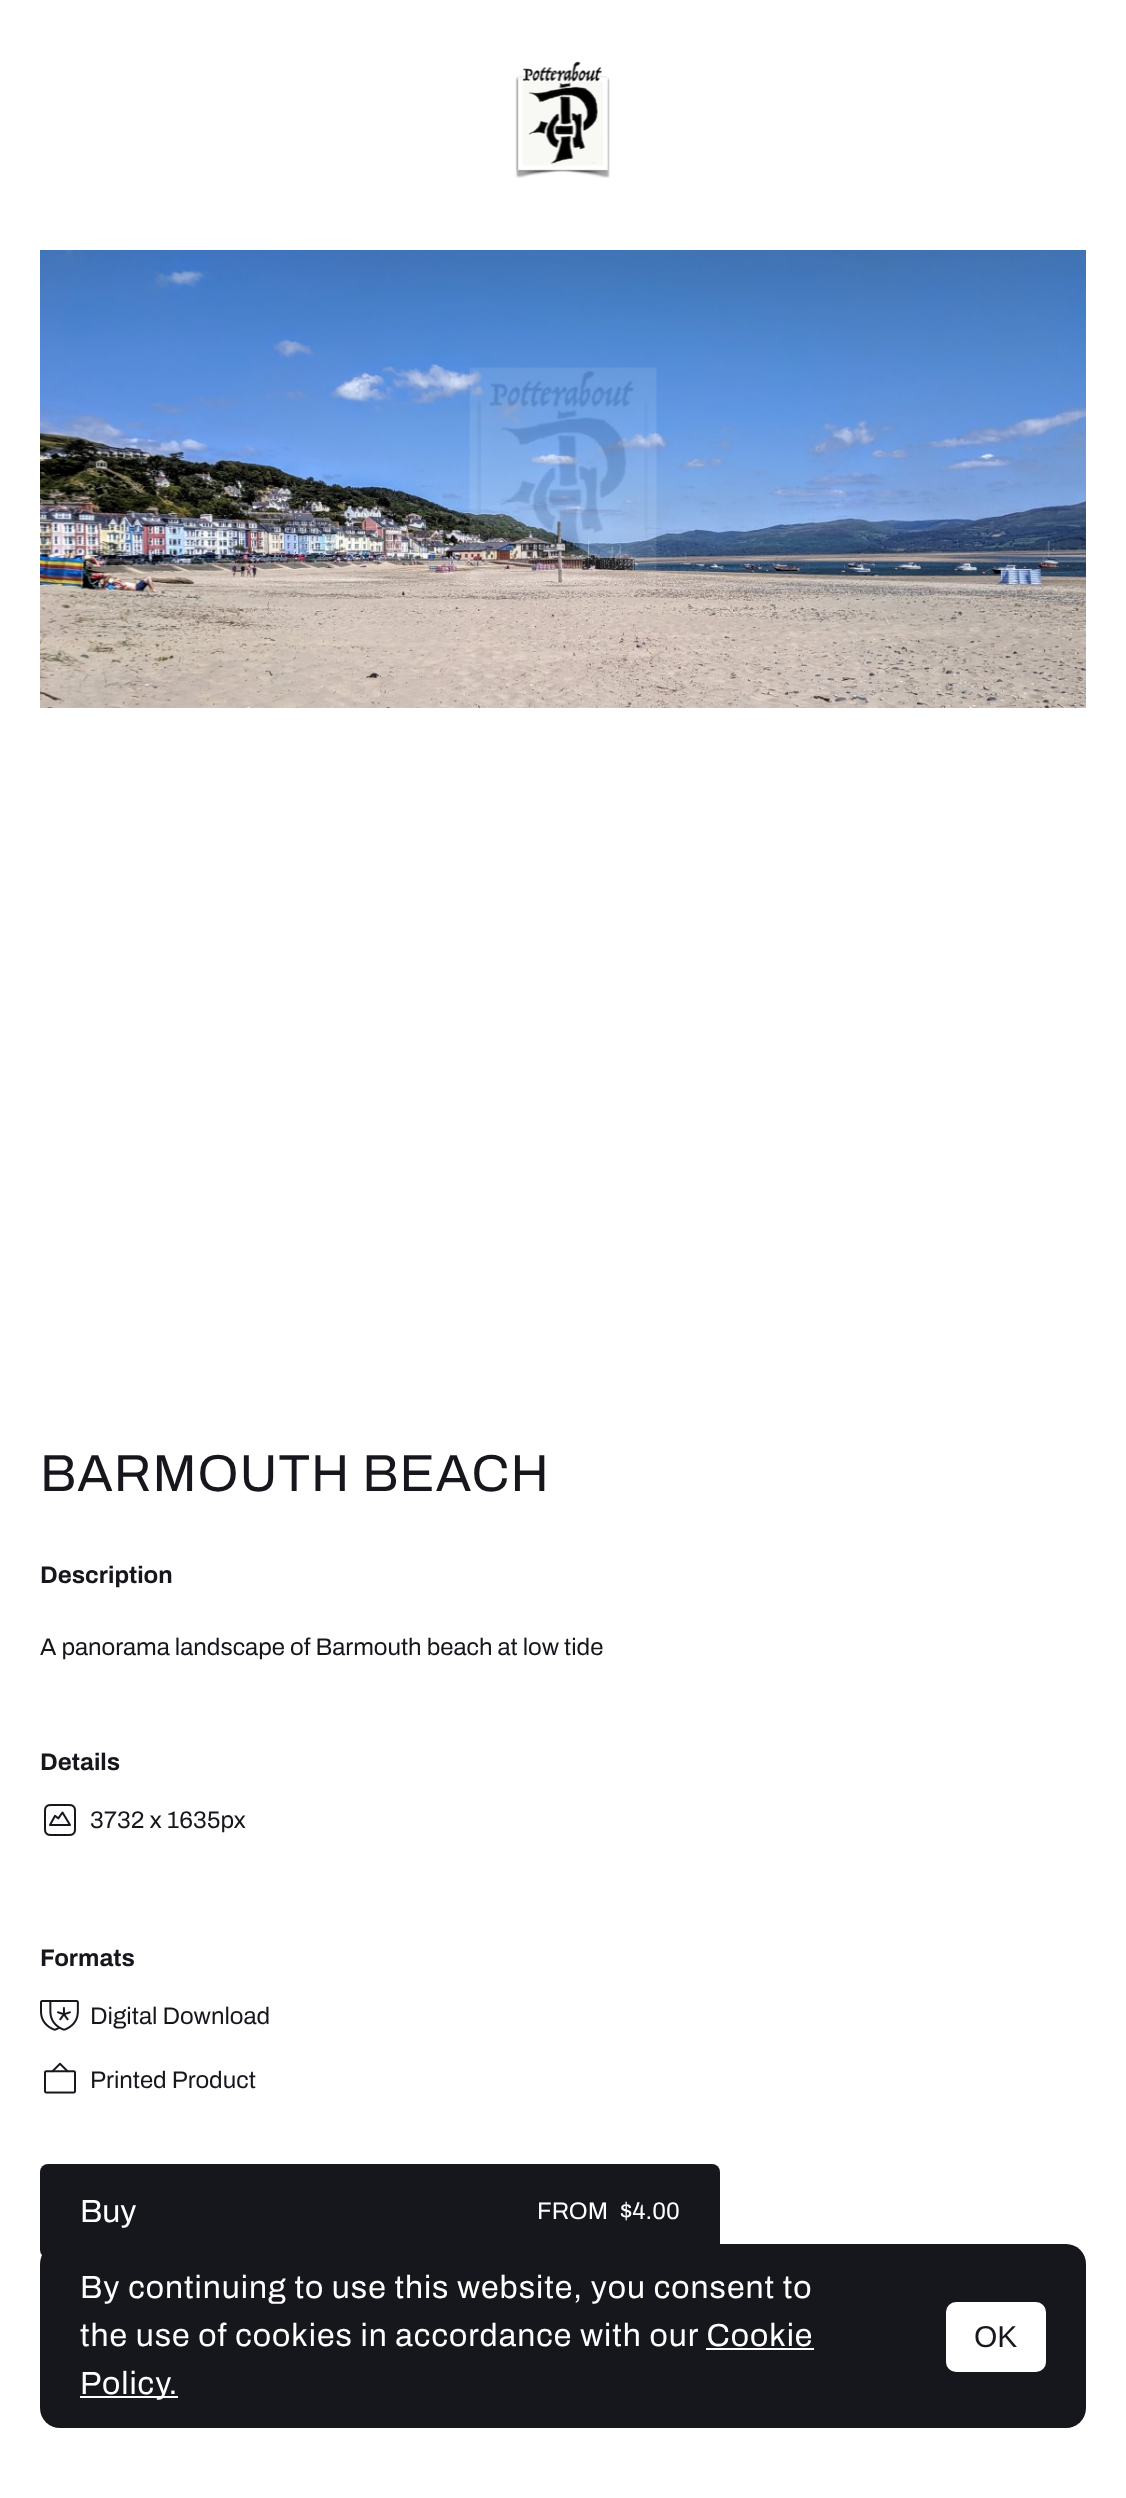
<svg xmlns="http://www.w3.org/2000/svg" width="1126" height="2498">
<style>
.a{font:52px Archivo;letter-spacing:1px;fill:#16161d}
.b{font:bold 24px Archivo;fill:#16161d}
.c{font:24px Archivo;fill:#16161d}
.d{font:32px Archivo;fill:#fff}
.e{font:24px Archivo;fill:#fff}
.f{font:32px Archivo;letter-spacing:1px;fill:#fff}
.g{font:30px Liberation Sans;fill:#16161d}
</style>
<rect width="100%" height="100%" fill="#fff"/>
<image href="1.png" x="515" y="61" width="95" height="117"/>
<image href="2.png" x="40" y="250" width="1046" height="458"/>
<image href="3.png" x="44" y="1804" width="32" height="32"/>
<image href="4.png" x="40" y="2000" width="39" height="31"/>
<image href="5.png" x="44" y="2062" width="32" height="32"/>
<rect fill="#16161d" x="40" y="2164" width="680" height="94" rx="8"/>
<rect fill="#16161d" x="40" y="2244" width="1046" height="184" rx="20"/>
<path fill="#fff" d="M706 2348h108v2H706z"/>
<path fill="#fff" d="M80 2396h98v2H80z"/>
<rect fill="#fff" x="946" y="2302" width="100" height="70" rx="10"/>
<text class="a" x="40" y="1491">BARMOUTH BEACH</text>
<text class="b" x="40" y="1583">Description</text>
<text class="c" x="40" y="1655">A panorama landscape of Barmouth beach at low tide</text>
<text class="b" x="40" y="1770">Details</text>
<text class="c" x="90" y="1828">3732 x 1635px</text>
<text class="b" x="40" y="1966">Formats</text>
<text class="c" x="90" y="2024">Digital Download</text>
<text class="c" x="90" y="2088">Printed Product</text>
<text class="d" x="80" y="2222">Buy</text>
<text class="e" x="537" y="2219">FROM</text>
<text class="e" x="620" y="2219">$4.00</text>
<text class="f" x="80" y="2298">By continuing to use this website, you consent to</text>
<text class="f" x="80" y="2346">the use of cookies in accordance with our Cookie</text>
<text class="f" x="80" y="2394">Policy.</text>
<text class="g" x="974" y="2347">OK</text>
</svg>
